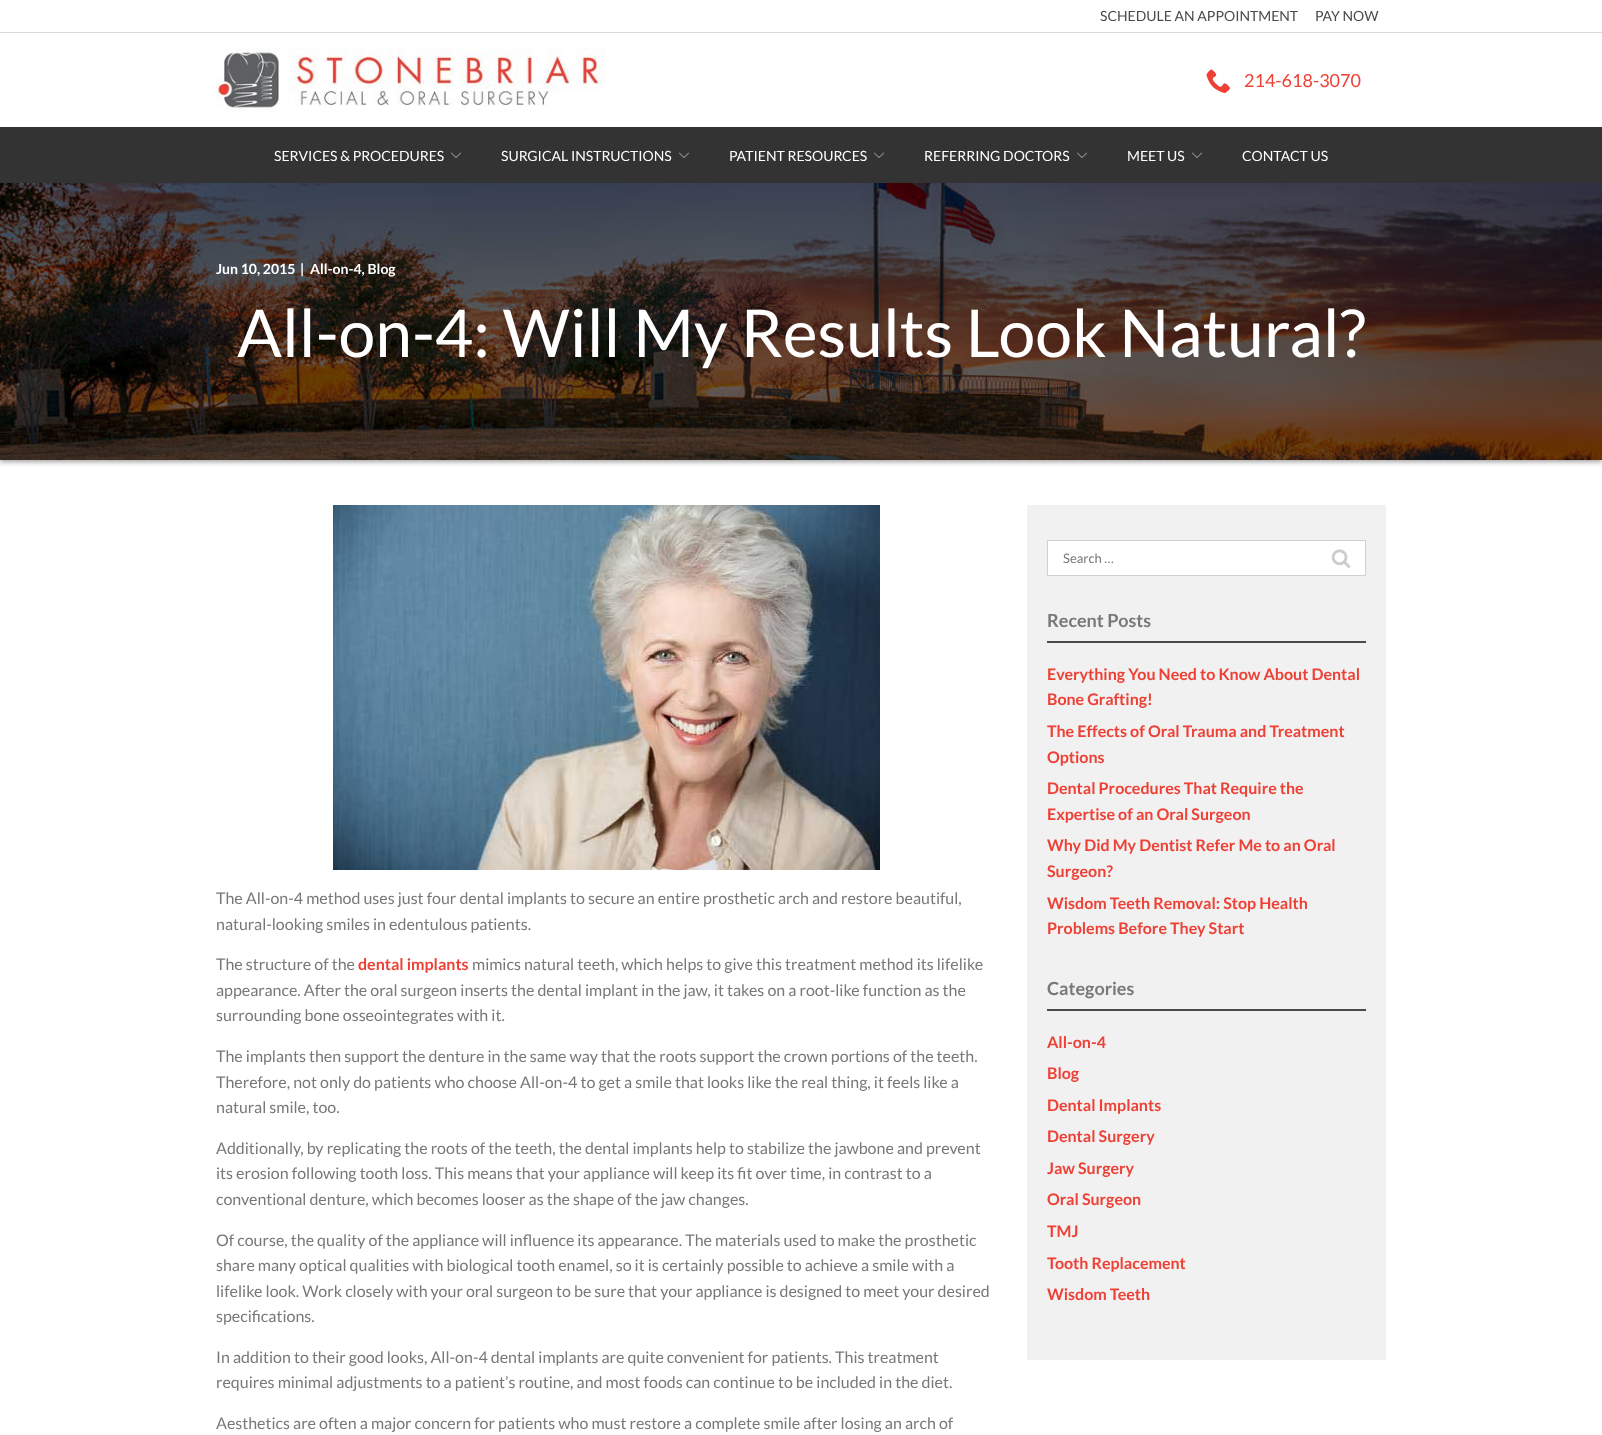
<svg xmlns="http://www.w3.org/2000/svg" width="1602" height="1435">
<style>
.a{font:14px Lato;fill:#494949}
.b{font:18px Lato;fill:#ee4035}
.c{font:14px Lato;fill:#fff}
.d{font:bold 14px Lato;fill:#fff}
.e{font:66px Lato;fill:#fff}
.f{font:16px Lato;fill:#787878}
.g{font:bold 16px Lato;fill:#ee4035}
.h{font:13px Lato;fill:#787878}
.i{font:bold 18px Lato;fill:#787878}
</style>
<rect width="100%" height="100%" fill="#fff"/>
<path fill="#d9d9d9" d="M0 32h1602v1H0z"/>
<image href="1.png" x="216" y="48" width="390" height="64"/>
<image href="2.png" x="1206" y="69" width="24" height="24"/>
<path fill="#a1a1a1" filter="blur(2.5px)" d="M0 185h1602v277H0z"/>
<path fill="#333" d="M0 127h1602v56H0z"/>
<image href="3.png" x="451" y="152" width="10" height="6"/>
<image href="3.png" x="679" y="152" width="10" height="6"/>
<image href="3.png" x="874" y="152" width="10" height="6"/>
<image href="3.png" x="1077" y="152" width="10" height="6"/>
<image href="3.png" x="1192" y="152" width="10" height="6"/>
<image href="4.png" x="0" y="183" width="1602" height="277"/>
<image href="5.png" x="333" y="505" width="547" height="365"/>
<path fill="#f1f1f1" d="M1027 505h359v855H1027z"/>
<path fill="#fff" stroke="#d0d0d0" d="M1047.5 540.5h318v35H1047.5z"/>
<image href="6.png" x="1331" y="549" width="20" height="19"/>
<path fill="#494949" d="M1047 641h319v2H1047z"/>
<path fill="#494949" d="M1047 1009h319v2H1047z"/>
<text class="a" x="1100" y="21">SCHEDULE AN APPOINTMENT</text>
<text class="a" x="1315" y="21">PAY NOW</text>
<text class="b" x="1244" y="87">214-618-3070</text>
<text class="c" x="274" y="161">SERVICES &amp; PROCEDURES</text>
<text class="c" x="501" y="161">SURGICAL INSTRUCTIONS</text>
<text class="c" x="729" y="161">PATIENT RESOURCES</text>
<text class="c" x="924" y="161">REFERRING DOCTORS</text>
<text class="c" x="1127" y="161">MEET US</text>
<text class="c" x="1242" y="161">CONTACT US</text>
<text class="d" x="216" y="274">Jun 10, 2015</text>
<text class="d" x="300" y="274">|</text>
<text class="d" x="310" y="274">All-on-4, Blog</text>
<text class="e" x="237" y="357">All-on-4: Will My Results Look Natural?</text>
<text class="f" x="216" y="904">The All-on-4 method uses just four dental implants to secure an entire prosthetic arch and restore beautiful,</text>
<text class="f" x="216" y="930">natural-looking smiles in edentulous patients.</text>
<text class="f" x="216" y="970">The structure of the</text>
<text class="g" x="358" y="970">dental implants</text>
<text class="f" x="472" y="970">mimics natural teeth, which helps to give this treatment method its lifelike</text>
<text class="f" x="216" y="996">appearance. After the oral surgeon inserts the dental implant in the jaw, it takes on a root-like function as the</text>
<text class="f" x="216" y="1021">surrounding bone osseointegrates with it.</text>
<text class="f" x="216" y="1062">The implants then support the denture in the same way that the roots support the crown portions of the teeth.</text>
<text class="f" x="216" y="1088">Therefore, not only do patients who choose All-on-4 to get a smile that looks like the real thing, it feels like a</text>
<text class="f" x="216" y="1113">natural smile, too.</text>
<text class="f" x="216" y="1154">Additionally, by replicating the roots of the teeth, the dental implants help to stabilize the jawbone and prevent</text>
<text class="f" x="216" y="1179">its erosion following tooth loss. This means that your appliance will keep its fit over time, in contrast to a</text>
<text class="f" x="216" y="1205">conventional denture, which becomes looser as the shape of the jaw changes.</text>
<text class="f" x="216" y="1246">Of course, the quality of the appliance will influence its appearance. The materials used to make the prosthetic</text>
<text class="f" x="216" y="1271">share many optical qualities with biological tooth enamel, so it is certainly possible to achieve a smile with a</text>
<text class="f" x="216" y="1297">lifelike look. Work closely with your oral surgeon to be sure that your appliance is designed to meet your desired</text>
<text class="f" x="216" y="1322">specifications.</text>
<text class="f" x="216" y="1363">In addition to their good looks, All-on-4 dental implants are quite convenient for patients. This treatment</text>
<text class="f" x="216" y="1388">requires minimal adjustments to a patient’s routine, and most foods can continue to be included in the diet.</text>
<text class="f" x="216" y="1429">Aesthetics are often a major concern for patients who must restore a complete smile after losing an arch of</text>
<text class="h" x="1063" y="563">Search …</text>
<text class="i" x="1047" y="627">Recent Posts</text>
<text class="g" x="1047" y="680">Everything You Need to Know About Dental</text>
<text class="g" x="1047" y="705">Bone Grafting!</text>
<text class="g" x="1047" y="737">The Effects of Oral Trauma and Treatment</text>
<text class="g" x="1047" y="763">Options</text>
<text class="g" x="1047" y="794">Dental Procedures That Require the</text>
<text class="g" x="1047" y="820">Expertise of an Oral Surgeon</text>
<text class="g" x="1047" y="851">Why Did My Dentist Refer Me to an Oral</text>
<text class="g" x="1047" y="877">Surgeon?</text>
<text class="g" x="1047" y="909">Wisdom Teeth Removal: Stop Health</text>
<text class="g" x="1047" y="934">Problems Before They Start</text>
<text class="i" x="1047" y="995">Categories</text>
<text class="g" x="1047" y="1048">All-on-4</text>
<text class="g" x="1047" y="1079">Blog</text>
<text class="g" x="1047" y="1111">Dental Implants</text>
<text class="g" x="1047" y="1142">Dental Surgery</text>
<text class="g" x="1047" y="1174">Jaw Surgery</text>
<text class="g" x="1047" y="1205">Oral Surgeon</text>
<text class="g" x="1047" y="1237">TMJ</text>
<text class="g" x="1047" y="1269">Tooth Replacement</text>
<text class="g" x="1047" y="1300">Wisdom Teeth</text>
</svg>
